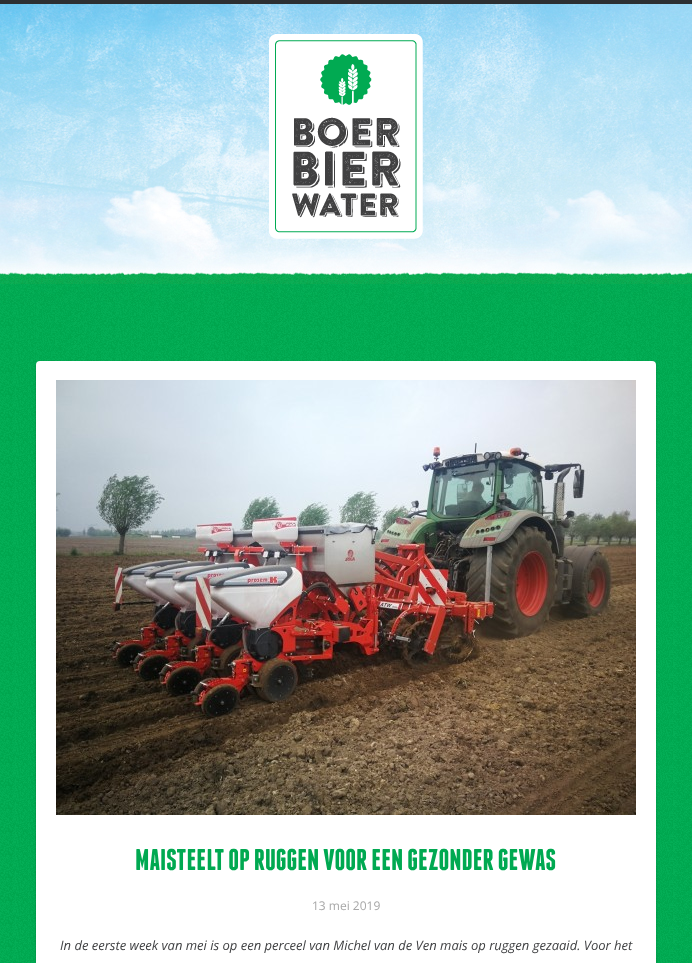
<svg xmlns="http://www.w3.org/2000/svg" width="692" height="963">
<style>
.a{font:bold 30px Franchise;fill:#00a951}
.b{font:12px Open Sans;fill:#a7a7a7}
.c{font:italic 13px Open Sans;fill:#414244}
</style>
<rect width="100%" height="100%" fill="#fff"/>
<image href="1.png" x="0" y="304" width="692" height="659"/>
<path fill="#2c2f32" d="M0 0h692v4H0z"/>
<image href="2.png" x="0" y="4" width="692" height="300"/>
<image href="3.png" x="269" y="34" width="154" height="205"/>
<rect fill="#00000033" filter="blur(1px)" x="36" y="362" width="620" height="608" rx="4"/>
<rect fill="#fff" x="36" y="361" width="620" height="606" rx="4"/>
<image href="4.png" x="56" y="380" width="580" height="435"/>
<text class="a" x="135" y="870">MAISTEELT OP RUGGEN VOOR EEN GEZONDER GEWAS</text>
<text class="b" x="312" y="910">13 mei 2019</text>
<text class="c" x="60" y="950">In de eerste week van mei is op een perceel van Michel van de Ven mais op ruggen gezaaid. Voor het</text>
</svg>
